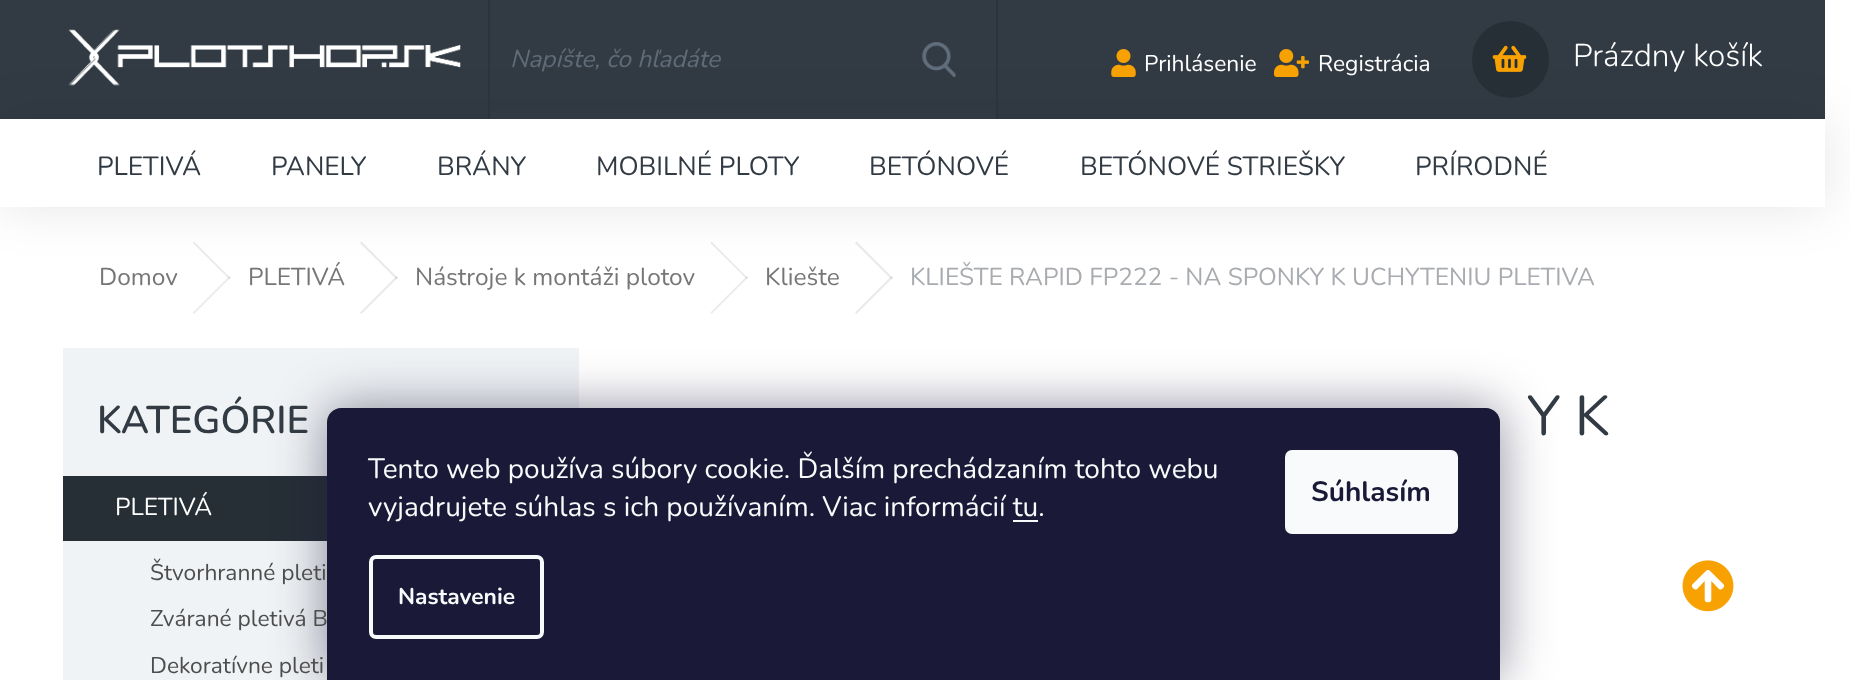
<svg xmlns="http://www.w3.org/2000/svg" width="1850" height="680">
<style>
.a{font:italic 24.5px Nunito;fill:#5f6c78}
.b{font:300 31.5px Nunito;fill:#fff}
.c{font:22.75px Nunito;fill:#fff}
.d{font:26.25px Nunito;fill:#323b44}
.e{font:24.5px Nunito;fill:#767676}
.f{font:24.5px Nunito;fill:#a8abaf}
.g{font:600 38.5px Nunito;fill:#323b44}
.h{font:24.5px Nunito;fill:#fff}
.i{font:22.75px Nunito;fill:#4d4d4d}
.j{font:56px Nunito;fill:#323b44}
.k{font:28px Nunito;fill:#f8fafb}
.l{font:bold 22.75px Nunito;fill:#f8fafb}
.m{font:bold 28px Nunito;fill:#1a1937}
</style>
<rect width="100%" height="100%" fill="#fff"/>
<path fill="#323b44" d="M0 0h1825v119H0z"/>
<path fill="#e9eaeb" d="M193 243l1-1.5l36.5 36.5l-1 1.5z"/>
<path fill="#262e361a" d="M229.5 276l1 1.5l-36.5 36.5l-1-1.5z"/>
<path fill="#e9eaeb" d="M360 243l1.5-1.5l36.5 36.5l-1.5 1.5z"/>
<path fill="#262e361a" d="M396.5 276l1.5 1.5l-36.5 36.5l-1.5-1.5z"/>
<path fill="#e9eaeb" d="M710.5 243l1-1.5l36.5 36.5l-1 1.5z"/>
<path fill="#262e361a" d="M747 276l1 1.5l-36.5 36.5l-1-1.5z"/>
<path fill="#e9eaeb" d="M855 243l1.5-1.5l36.5 36.5l-1.5 1.5z"/>
<path fill="#262e361a" d="M891.5 276l1.5 1.5l-36.5 36.5l-1.5-1.5z"/>
<path fill="#0000001a" filter="blur(26px)" d="M0 119h1825v88H0z"/>
<path fill="#fff" d="M0 119h1825v88H0z"/>
<image href="1.png" x="68" y="29" width="393" height="57"/>
<path fill="#323b44" d="M490 111h506v8H490z"/>
<path fill="#2b343c" d="M996 0h2v119H996z"/>
<path fill="#2b343c" d="M488 0h2v119H488z"/>
<image href="2.png" x="922" y="42" width="34" height="35"/>
<circle fill="#262e36" cx="1510.5" cy="59.5" r="38.5"/>
<image href="3.png" x="1492" y="45" width="35" height="27"/>
<image href="4.png" x="1111" y="49" width="25" height="28"/>
<image href="5.png" x="1274" y="49" width="35" height="28"/>
<path fill="#f0f3f5" d="M63 348h516v332H63z"/>
<path fill="#262e36" d="M63 476h264v65H63z"/>
<rect fill="#1b193980" filter="blur(26px)" x="327" y="408" width="1173" height="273" rx="14"/>
<path fill="#1a1937" d="M341 408h1145c7.5 0 14 6.5 14 14v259h-1173v-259c0-7.5 6.5-14 14-14z"/>
<path fill="#f8fafb" d="M1013 520h25v2H1013z"/>
<rect fill="none" stroke="#f8fafb" stroke-width="4" x="371" y="557" width="171" height="80" rx="5"/>
<rect fill="#f8fafb" x="1285" y="450" width="173" height="84" rx="7"/>
<image href="6.png" x="1682" y="560" width="52" height="52"/>
<text class="a" x="510" y="67">Napíšte, čo hľadáte</text>
<text class="b" x="1573" y="66">Prázdny košík</text>
<text class="c" x="1144" y="71">Prihlásenie</text>
<text class="c" x="1318" y="71">Registrácia</text>
<text class="d" x="97" y="175">PLETIVÁ</text>
<text class="d" x="271" y="175">PANELY</text>
<text class="d" x="437" y="175">BRÁNY</text>
<text class="d" x="596" y="175">MOBILNÉ PLOTY</text>
<text class="d" x="869" y="175">BETÓNOVÉ</text>
<text class="d" x="1080" y="175">BETÓNOVÉ STRIEŠKY</text>
<text class="d" x="1415" y="175">PRÍRODNÉ</text>
<text class="e" x="99" y="285">Domov</text>
<text class="e" x="248" y="285">PLETIVÁ</text>
<text class="e" x="415" y="285">Nástroje k montáži plotov</text>
<text class="e" x="765" y="285">Kliešte</text>
<text class="f" x="910" y="285">KLIEŠTE RAPID FP222 - NA SPONKY K UCHYTENIU PLETIVA</text>
<text class="g" x="97" y="433">KATEGÓRIE</text>
<text class="h" x="115" y="515">PLETIVÁ</text>
<text class="i" x="150" y="580">Štvorhranné pleti</text>
<text class="i" x="150" y="626">Zvárané pletivá B</text>
<text class="i" x="150" y="673">Dekoratívne pleti</text>
<text class="j" x="1527" y="435">Y K</text>
<text class="k" x="368" y="478">Tento web používa súbory cookie. Ďalším prechádzaním tohto webu</text>
<text class="k" x="368" y="516">vyjadrujete súhlas s ich používaním. Viac informácií tu.</text>
<text class="l" x="398" y="604">Nastavenie</text>
<text class="m" x="1311" y="501">Súhlasím</text>
</svg>
